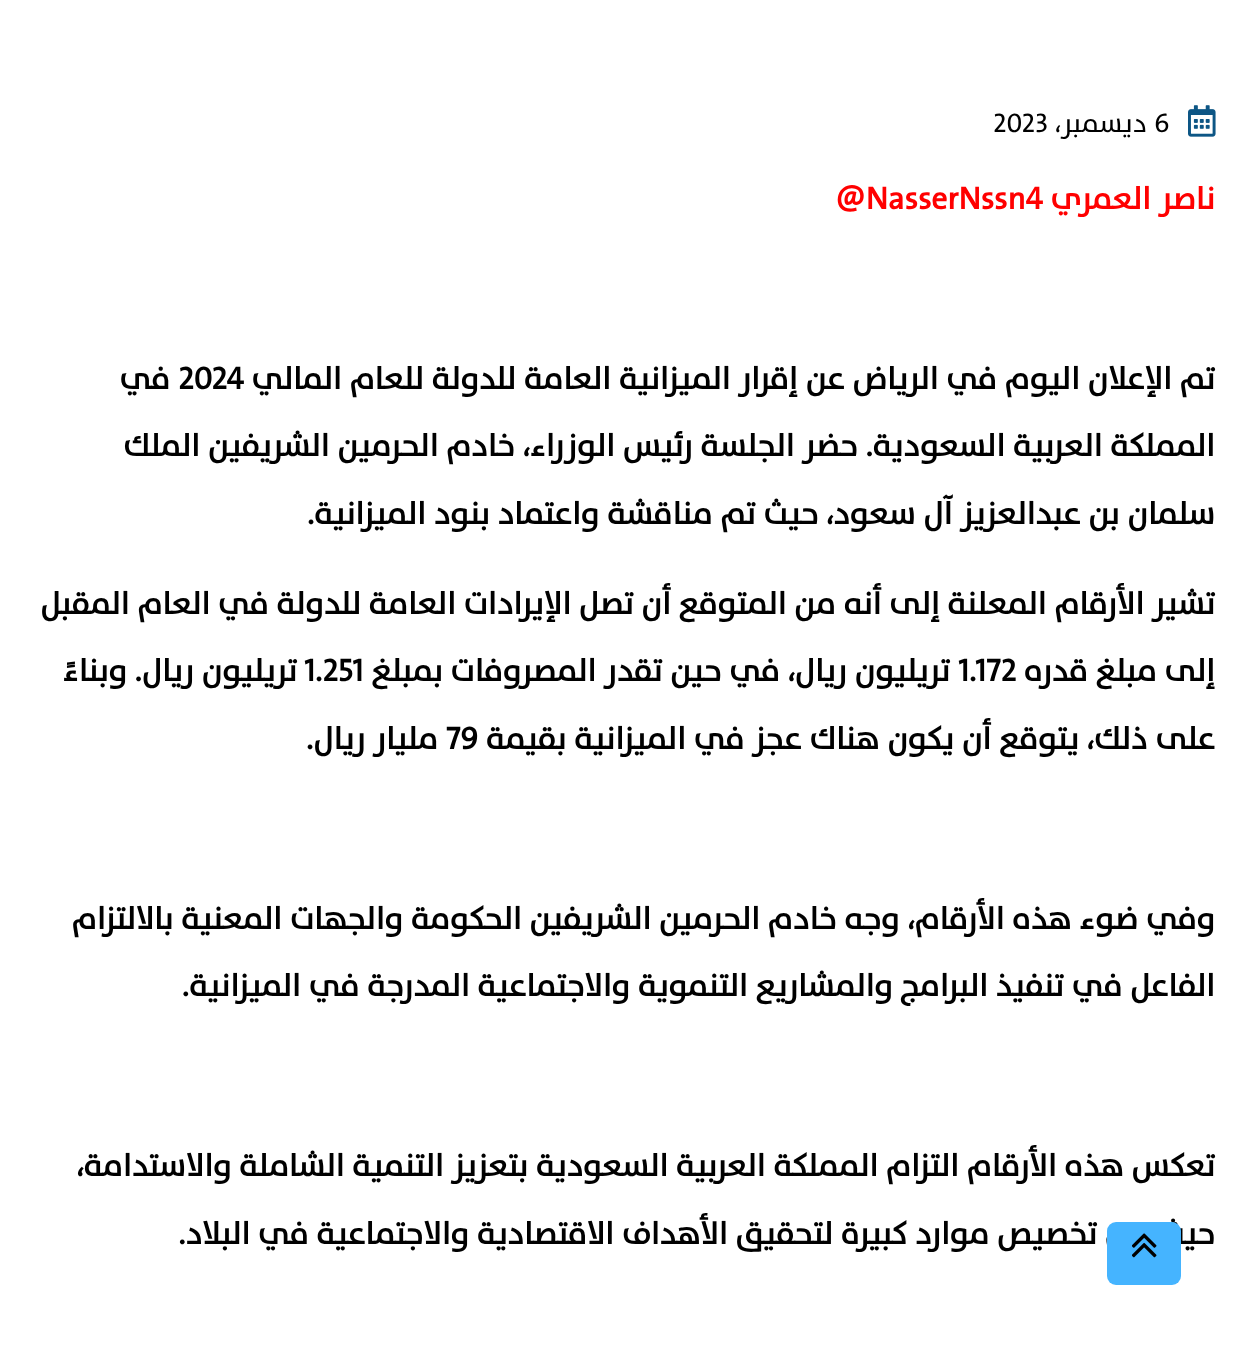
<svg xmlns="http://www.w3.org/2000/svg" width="1248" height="1351">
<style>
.a{font:27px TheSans;fill:#000}
.b{font:27px TheSans;direction:rtl;fill:#000}
.c{font:bold 31.5px TheSans;direction:rtl;fill:#f00}
.d{font:bold 31.5px TheSans;fill:#f00}
.e{font:bold 31.5px TheSans;direction:rtl;fill:#000}
.f{font:bold 31.5px TheSans;fill:#000}
</style>
<rect width="100%" height="100%" fill="#fff"/>
<image href="1.png" x="1188" y="105" width="28" height="32"/>
<text class="a" x="1154" y="132">6</text>
<text class="b" x="1147" y="132">ديسمبر،</text>
<text class="a" x="993" y="132">2023</text>
<text class="c" x="1215" y="209">ناصر العمري</text>
<text class="d" x="835" y="209">@NasserNssn4</text>
<text class="e" x="1215" y="389">تم الإعلان اليوم في الرياض عن إقرار الميزانية العامة للدولة للعام المالي</text>
<text class="f" x="178" y="389">2024</text>
<text class="e" x="170" y="389">في</text>
<text class="e" x="1215" y="456">المملكة العربية السعودية. حضر الجلسة رئيس الوزراء، خادم الحرمين الشريفين الملك</text>
<text class="e" x="1215" y="524">سلمان بن عبدالعزيز آل سعود، حيث تم مناقشة واعتماد بنود الميزانية.</text>
<text class="e" x="1215" y="614">تشير الأرقام المعلنة إلى أنه من المتوقع أن تصل الإيرادات العامة للدولة في العام المقبل</text>
<text class="e" x="1215" y="681">إلى مبلغ قدره</text>
<text class="f" x="958" y="681">1.172</text>
<text class="e" x="950" y="681">تريليون ريال، في حين تقدر المصروفات بمبلغ</text>
<text class="f" x="304" y="681">1.251</text>
<text class="e" x="297" y="681">تريليون ريال. وبناءً</text>
<text class="e" x="1215" y="749">على ذلك، يتوقع أن يكون هناك عجز في الميزانية بقيمة</text>
<text class="f" x="446" y="749">79</text>
<text class="e" x="438" y="749">مليار ريال.</text>
<text class="e" x="1215" y="929">وفي ضوء هذه الأرقام، وجه خادم الحرمين الشريفين الحكومة والجهات المعنية بالالتزام</text>
<text class="e" x="1215" y="996">الفاعل في تنفيذ البرامج والمشاريع التنموية والاجتماعية المدرجة في الميزانية.</text>
<text class="e" x="1215" y="1176">تعكس هذه الأرقام التزام المملكة العربية السعودية بتعزيز التنمية الشاملة والاستدامة،</text>
<text class="e" x="1215" y="1244">حيث يتم تخصيص موارد كبيرة لتحقيق الأهداف الاقتصادية والاجتماعية في البلاد.</text>
<rect fill="#45b4ff" x="1107" y="1222" width="74" height="63" rx="9"/>
<image href="2.png" x="1132" y="1233" width="25" height="25"/>
</svg>
